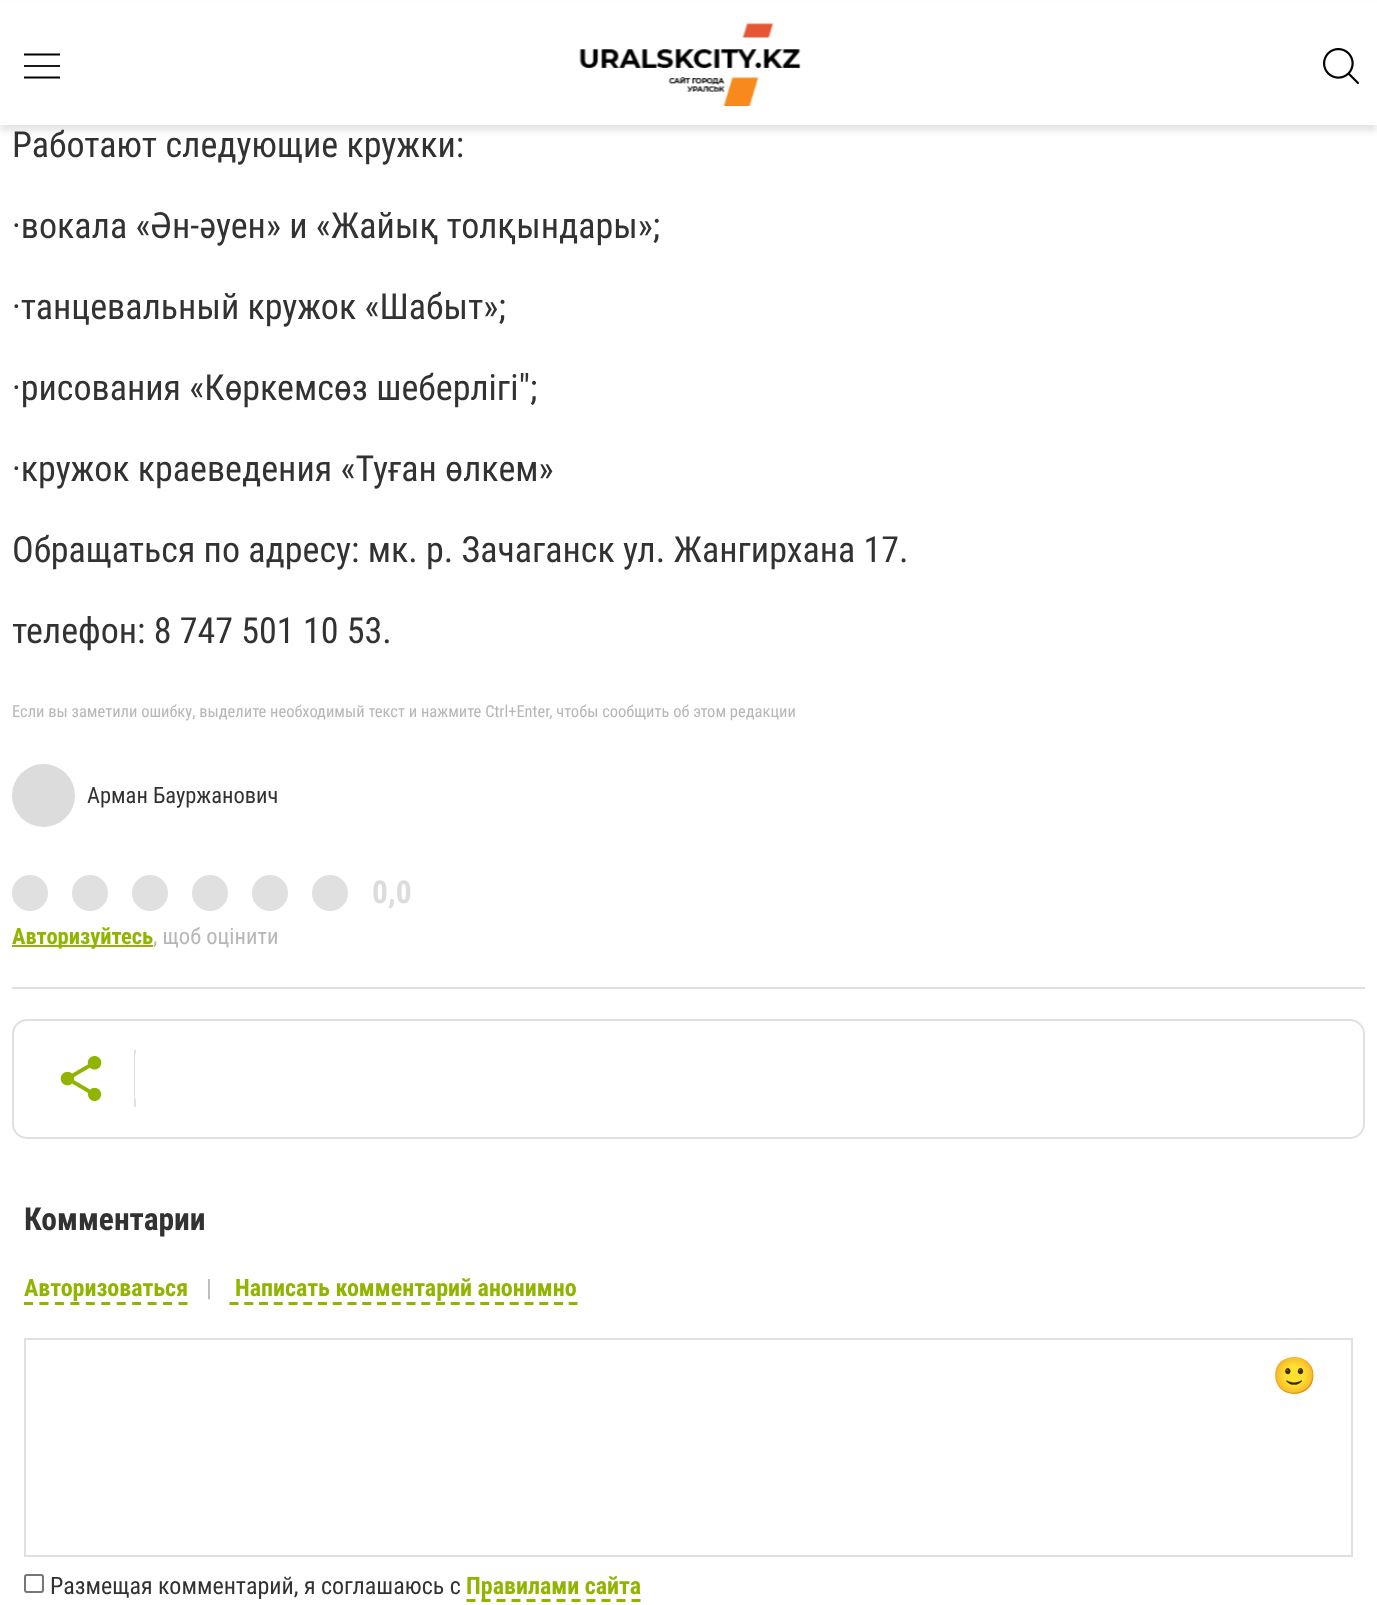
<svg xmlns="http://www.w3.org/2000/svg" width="1377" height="1605">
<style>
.a{font:36px Roboto Condensed;fill:#323232}
.b{font:16.5px Roboto Condensed;fill:#b7b7b7}
.c{font:22.5px Roboto Condensed;fill:#323232}
.d{font:bold 31.5px Roboto Condensed;fill:#dcdcdc}
.e{font:bold 22.5px Roboto Condensed;fill:#90b400}
.f{font:22.5px Roboto Condensed;fill:#b7b7b7}
.g{font:bold 31.5px Roboto Condensed;fill:#323232}
.h{font:bold 24px Roboto Condensed;fill:#90b400}
.i{font:24px Roboto Condensed;fill:#b7b7b7}
.j{font:36px Noto Color Emoji;fill:#323232}
.k{font:24px Roboto Condensed;fill:#323232}
</style>
<rect width="100%" height="100%" fill="#fff"/>
<path fill="#0000001a" filter="blur(3px)" d="M0 6h1377v125H0z"/>
<path fill="#fff" d="M0 2h1377v123H0z"/>
<path fill="none" stroke="#000" stroke-width="1.8" d="M24 54.5h36"/>
<path fill="#1a1a1a" d="M24 65h36v2H24z"/>
<path fill="none" stroke="#000" stroke-width="1.8" d="M24 77.5h36"/>
<image href="1.png" x="579" y="23" width="222" height="83"/>
<image href="2.png" x="1323" y="48" width="36" height="36"/>
<circle fill="#dcdcdc" cx="43.5" cy="795.5" r="31.5"/>
<path fill="#e0e0e0" d="M12 987h1353v2H12z"/>
<circle fill="#e0e0e0" cx="30" cy="893" r="18"/>
<circle fill="#e0e0e0" cx="90" cy="893" r="18"/>
<circle fill="#e0e0e0" cx="150" cy="893" r="18"/>
<circle fill="#e0e0e0" cx="210" cy="893" r="18"/>
<circle fill="#e0e0e0" cx="270" cy="893" r="18"/>
<circle fill="#e0e0e0" cx="330" cy="893" r="18"/>
<path fill="#90b400" d="M12 945h141v2H12z"/>
<rect fill="none" stroke="#e0e0e0" stroke-width="2" x="13" y="1020" width="1351" height="118" rx="14"/>
<image href="3.png" x="60" y="1056" width="42" height="45"/>
<path fill="#e0e0e0" d="M134 1050h2v57H134z"/>
<rect fill="#fff" x="135" y="1050" width="294" height="53" rx="8"/>
<rect fill="#fff" x="135" y="1050" width="42" height="53" rx="6"/>
<path fill="none" stroke="#90b400" stroke-width="3" stroke-dasharray="9 6.45" d="M24 1303.5h163.5"/>
<path fill="none" stroke="#90b400" stroke-width="3" stroke-dasharray="9 5.75" d="M229.5 1303.5h348"/>
<path fill="none" stroke="#e0e0e0" stroke-width="2" d="M25 1339h1327v217H25z"/>
<rect fill="none" stroke="#767676" stroke-width="2" x="25" y="1575" width="18" height="17" rx="2"/>
<path fill="none" stroke="#90b400" stroke-width="3" stroke-dasharray="9 6" d="M466.5 1600.5h174"/>
<text class="a" x="12" y="157">Работают следующие кружки:</text>
<text class="a" x="12" y="238">·вокала «Ән-әуен» и «Жайық толқындары»;</text>
<text class="a" x="12" y="319">·танцевальный кружок «Шабыт»;</text>
<text class="a" x="12" y="400">·рисования «Көркемсөз шеберлігі";</text>
<text class="a" x="12" y="481">·кружок краеведения «Туған өлкем»</text>
<text class="a" x="12" y="562">Обращаться по адресу: мк. р. Зачаганск ул. Жангирхана 17.</text>
<text class="a" x="12" y="643">телефон: 8 747 501 10 53.</text>
<text class="b" x="12" y="717">Если вы заметили ошибку, выделите необходимый текст и нажмите Ctrl+Enter, чтобы сообщить об этом редакции</text>
<text class="c" x="87" y="803">Арман Бауржанович</text>
<text class="d" x="372" y="903">0,0</text>
<text class="e" x="12" y="944">Авторизуйтесь</text>
<text class="f" x="153" y="944">, щоб оцінити</text>
<text class="g" x="24" y="1230">Комментарии</text>
<text class="h" x="24" y="1296">Авторизоваться</text>
<text class="i" x="206" y="1296">|</text>
<text class="h" x="235" y="1296">Написать комментарий анонимно</text>
<text class="j" x="1272" y="1388">🙂</text>
<text class="k" x="50" y="1594">Размещая комментарий, я соглашаюсь с</text>
<text class="h" x="466" y="1594">Правилами сайта</text>
</svg>
